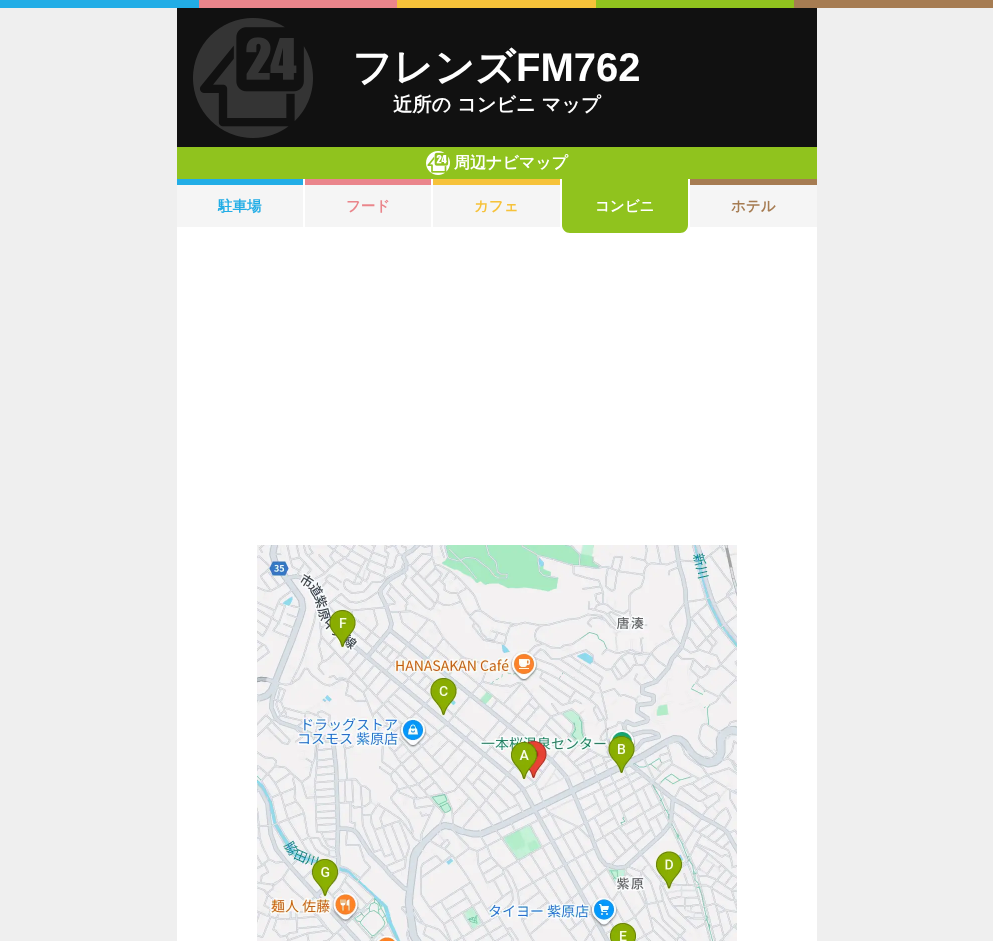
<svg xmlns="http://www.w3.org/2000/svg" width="993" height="941">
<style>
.a{font:bold 40px WenQuanYi Zen Hei;fill:#fff}
.b{font:bold 40px Liberation Sans;fill:#fff}
.c{font:bold 19.25px WenQuanYi Zen Hei;fill:#fff}
.d{font:bold 16px WenQuanYi Zen Hei;fill:#fff}
.e{font:bold 14.5px WenQuanYi Zen Hei;fill:#22ade6}
.f{font:bold 14.5px WenQuanYi Zen Hei;fill:#ea858b}
.g{font:bold 14.5px WenQuanYi Zen Hei;fill:#f6c23a}
.h{font:bold 14.5px WenQuanYi Zen Hei;fill:#fff}
.i{font:bold 14.5px WenQuanYi Zen Hei;fill:#a67c52}
</style>
<rect width="100%" height="100%" fill="#efefef"/>
<path fill="#22ade6" d="M0 0h199v8H0z"/>
<path fill="#ea858b" d="M199 0h198v8H199z"/>
<path fill="#f6c23a" d="M397 0h199v8H397z"/>
<path fill="#90c31e" d="M596 0h198v8H596z"/>
<path fill="#a67c52" d="M794 0h199v8H794z"/>
<path fill="#fff" d="M177 179h640v762H177z"/>
<path fill="#111" d="M177 8h640v139H177z"/>
<image href="1.png" x="193" y="18" width="120" height="120"/>
<path fill="#90c31e" d="M177 147h640v32H177z"/>
<image href="2.png" x="426" y="151" width="24" height="24"/>
<path fill="#f5f5f5" d="M177 185h126v42H177z"/>
<path fill="#22ade6" d="M177 179h126v6H177z"/>
<path fill="#f5f5f5" d="M305 185h126v42H305z"/>
<path fill="#ea858b" d="M305 179h126v6H305z"/>
<path fill="#f5f5f5" d="M433 185h127v42H433z"/>
<path fill="#f6c23a" d="M433 179h127v6H433z"/>
<path fill="#90c31e" d="M562 179h126v46c0 4.5-3.5 8-8 8h-110c-4.5 0-8-3.5-8-8z"/>
<path fill="#f5f5f5" d="M690 185h127v42H690z"/>
<path fill="#a67c52" d="M690 179h127v6H690z"/>
<image href="3.png" x="257" y="545" width="480" height="396"/>
<text class="a" x="352" y="81">フレンズ</text>
<text class="b" x="516" y="81">FM762</text>
<text class="c" x="393" y="111">近所の コンビニ マップ</text>
<text class="d" x="454" y="168">周辺ナビマップ</text>
<text class="e" x="218" y="211">駐車場</text>
<text class="f" x="346" y="211">フード</text>
<text class="g" x="474" y="211">カフェ</text>
<text class="h" x="595" y="211">コンビニ</text>
<text class="i" x="731" y="211">ホテル</text>
</svg>
